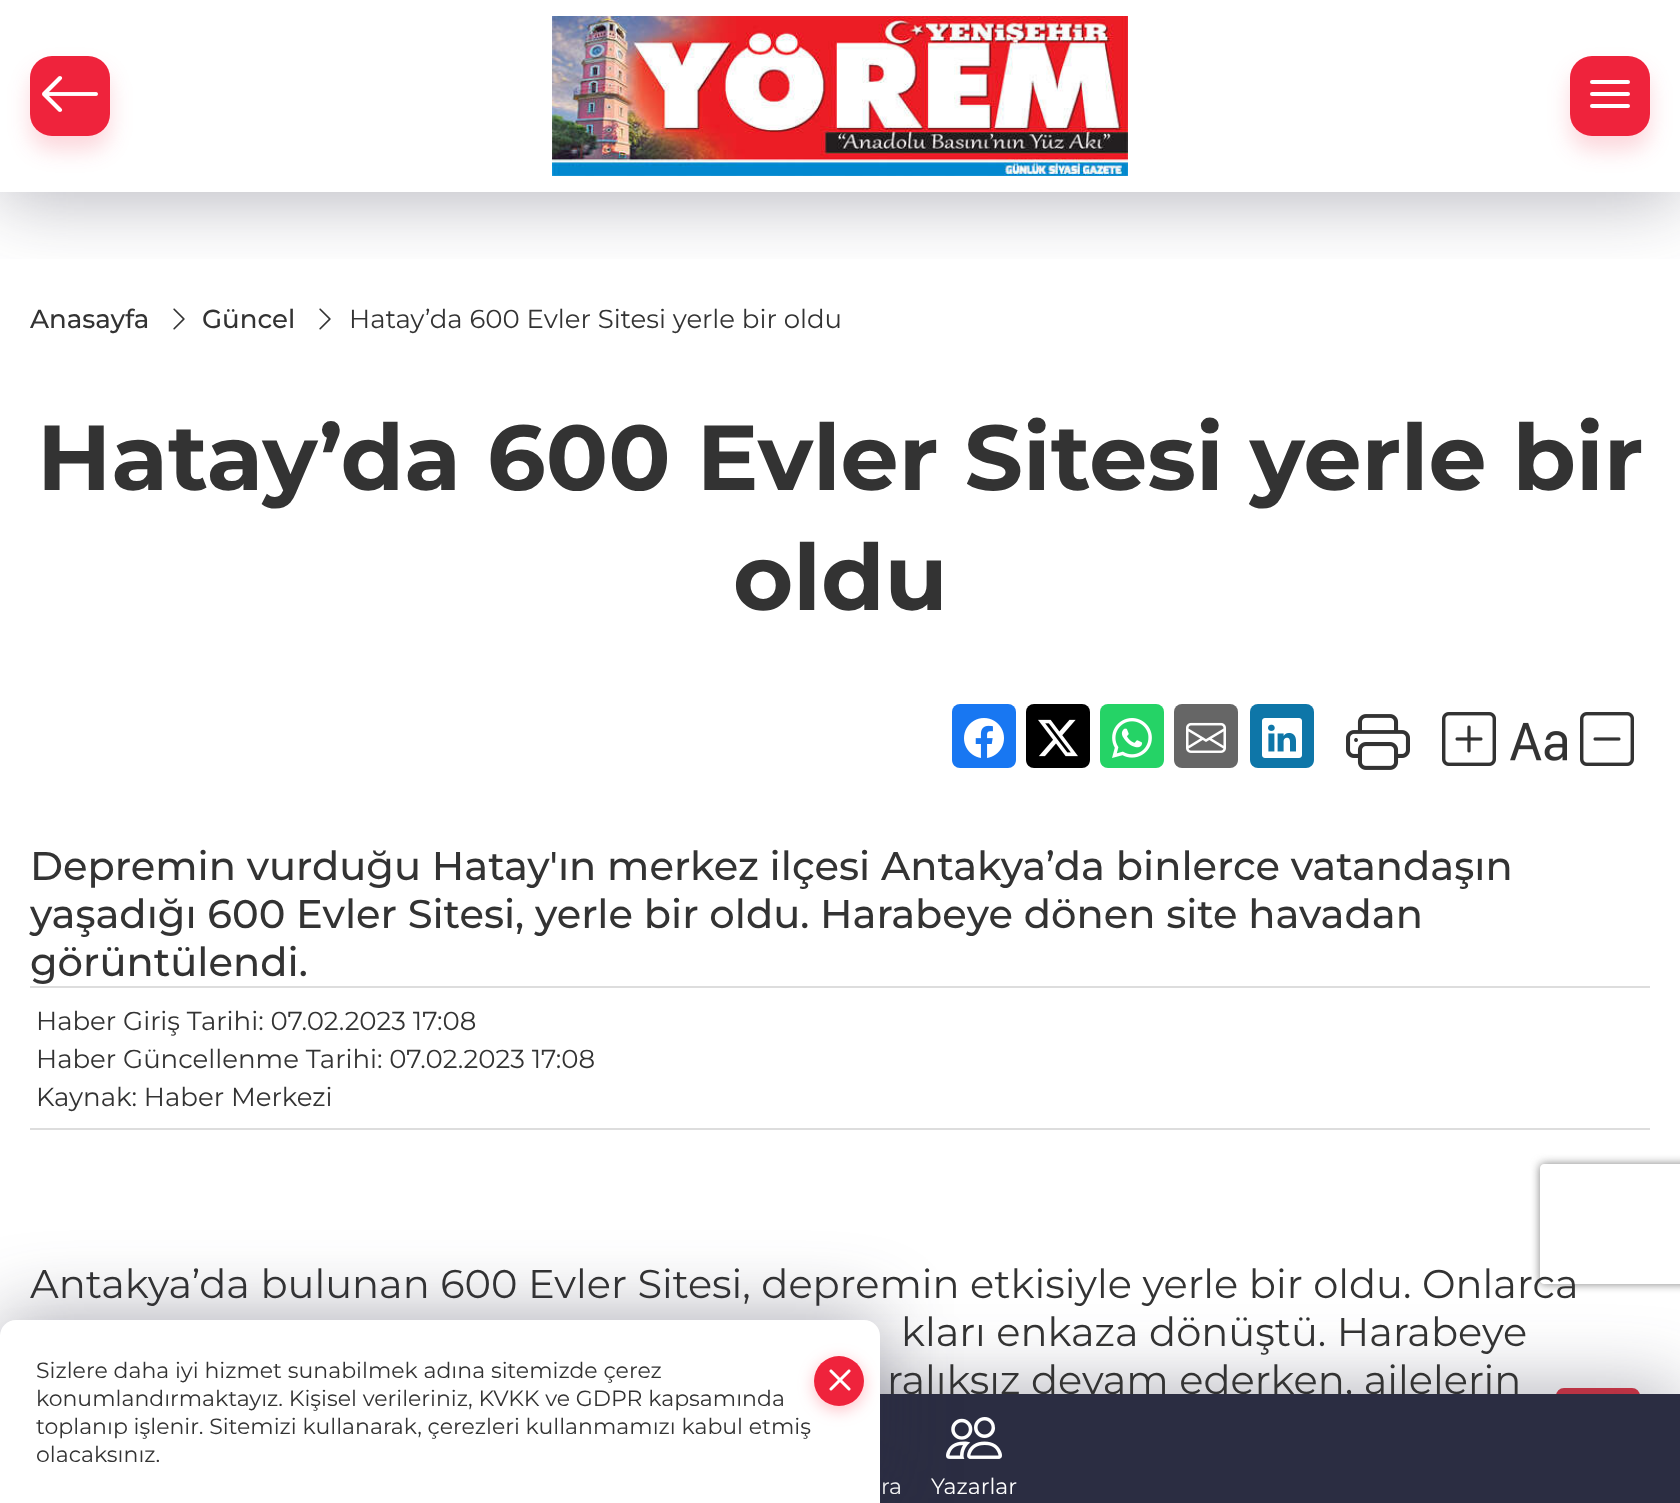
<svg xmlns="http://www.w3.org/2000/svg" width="1680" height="1503">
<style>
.a{font:500 26px Montserrat;fill:#333}
.b{font:26px Montserrat;fill:#333}
.c{font:bold 92px Montserrat;fill:#333}
.d{font:500 40px Montserrat;fill:#333}
.e{font:40px Montserrat;fill:#333}
.f{font:22px Montserrat;fill:#fff}
.g{font:22px Montserrat;fill:#333}
</style>
<defs>
<clipPath id="clip1"><path d="M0 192h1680v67H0z"/></clipPath>
<clipPath id="clip2"><path d="M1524 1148h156v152h-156zm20 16h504c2 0 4 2 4 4v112c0 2-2 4-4 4h-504c-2 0-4-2-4-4v-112c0-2 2-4 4-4z" clip-rule="evenodd"/></clipPath>
</defs>
<rect width="100%" height="100%" fill="#fff"/>
<image href="3.png" x="173" y="308" width="12" height="22"/>
<image href="3.png" x="319" y="308" width="12" height="22"/>
<g clip-path="url(#clip1)">
<path fill="#2b2d425c" filter="blur(38px)" d="M0 6h1680v192H0z"/>
</g>
<rect fill="#ef233c2e" filter="blur(11px)" x="30" y="70" width="80" height="80" rx="22"/>
<rect fill="#ef233c" x="30" y="56" width="80" height="80" rx="22"/>
<image href="1.png" x="42" y="76" width="56" height="36"/>
<image href="2.png" x="552" y="16" width="576" height="160"/>
<rect fill="#ef233c2e" filter="blur(11px)" x="1570" y="70" width="80" height="80" rx="22"/>
<rect fill="#ef233c" x="1570" y="56" width="80" height="80" rx="22"/>
<rect fill="#fff" x="1590" y="92" width="40" height="4" rx="2"/>
<rect fill="#fff" x="1590" y="80" width="40" height="4" rx="2"/>
<rect fill="#fff" x="1590" y="104" width="40" height="4" rx="2"/>
<rect fill="#1877f2" x="952" y="704" width="64" height="64" rx="8"/>
<image href="4.png" x="964" y="718" width="40" height="40"/>
<rect fill="#000" x="1026" y="704" width="64" height="64" rx="8"/>
<image href="5.png" x="1038" y="719" width="40" height="38"/>
<rect fill="#25d366" x="1100" y="704" width="64" height="64" rx="8"/>
<image href="6.png" x="1112" y="718" width="40" height="40"/>
<rect fill="#666" x="1174" y="704" width="64" height="64" rx="8"/>
<image href="7.png" x="1186" y="722" width="40" height="31"/>
<rect fill="#0e76a8" x="1250" y="704" width="64" height="64" rx="8"/>
<image href="8.png" x="1262" y="718" width="40" height="40"/>
<image href="9.png" x="1346" y="714" width="64" height="56"/>
<image href="10.png" x="1442" y="712" width="54" height="54"/>
<image href="11.png" x="1510" y="722" width="57" height="39"/>
<image href="12.png" x="1580" y="712" width="54" height="54"/>
<path fill="#ddd" d="M30 986h1620v2H30z"/>
<path fill="#ddd" d="M30 1128h1620v2H30z"/>
<rect fill="#dc3545" stroke="#dc3545" stroke-width="2" x="1557" y="1389" width="82" height="74" rx="7"/>
<path fill="#2b2d425c" filter="blur(38px)" d="M0 1388h1680v110H0z"/>
<g clip-path="url(#clip2)">
<rect fill="#808080" filter="blur(5px)" x="1540" y="1164" width="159" height="120" rx="4"/>
</g>
<text class="a" x="30" y="328">Anasayfa</text>
<text class="a" x="202" y="328">Güncel</text>
<text class="b" x="349" y="328">Hatay’da 600 Evler Sitesi yerle bir oldu</text>
<text class="c" x="37" y="490">Hatay’da 600 Evler Sitesi yerle bir</text>
<text class="c" x="733" y="610">oldu</text>
<text class="d" x="30" y="880">Depremin vurduğu Hatay'ın merkez ilçesi Antakya’da binlerce vatandaşın</text>
<text class="d" x="30" y="928">yaşadığı 600 Evler Sitesi, yerle bir oldu. Harabeye dönen site havadan</text>
<text class="d" x="30" y="976">görüntülendi.</text>
<text class="b" x="36" y="1030">Haber Giriş Tarihi: 07.02.2023 17:08</text>
<text class="b" x="36" y="1068">Haber Güncellenme Tarihi: 07.02.2023 17:08</text>
<text class="b" x="36" y="1106">Kaynak: Haber Merkezi</text>
<text class="e" x="30" y="1298">Antakya’da bulunan 600 Evler Sitesi, depremin etkisiyle yerle bir oldu. Onlarca</text>
<text class="e" x="901" y="1346">kları enkaza dönüştü. Harabeye</text>
<text class="e" x="887" y="1394">ralıksız devam ederken, ailelerin</text>
<path fill="#2b2d42" d="M880 1394h800v109H880z"/>
<text class="f" x="881" y="1494">ra</text>
<image href="13.png" x="946" y="1417" width="56" height="42"/>
<text class="f" x="931" y="1494">Yazarlar</text>
<rect fill="#2b2d425c" filter="blur(38px)" y="1314" width="880" height="184" rx="16"/>
<path fill="#fff" d="M16 1320h848c9 0 16 7 16 16v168h-880v-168c0-9 7-16 16-16z"/>
<text class="g" x="36" y="1378">Sizlere daha iyi hizmet sunabilmek adına sitemizde çerez</text>
<rect fill="#ff566a61" filter="blur(8px)" x="814" y="1360" width="50" height="50" rx="25"/>
<circle fill="#ef233c" cx="839" cy="1381" r="25"/>
<image href="14.png" x="829" y="1369" width="22" height="22"/>
<text class="g" x="36" y="1406">konumlandırmaktayız. Kişisel verileriniz, KVKK ve GDPR kapsamında</text>
<text class="g" x="36" y="1434">toplanıp işlenir. Sitemizi kullanarak, çerezleri kullanmamızı kabul etmiş</text>
<text class="g" x="36" y="1462">olacaksınız.</text>
</svg>
